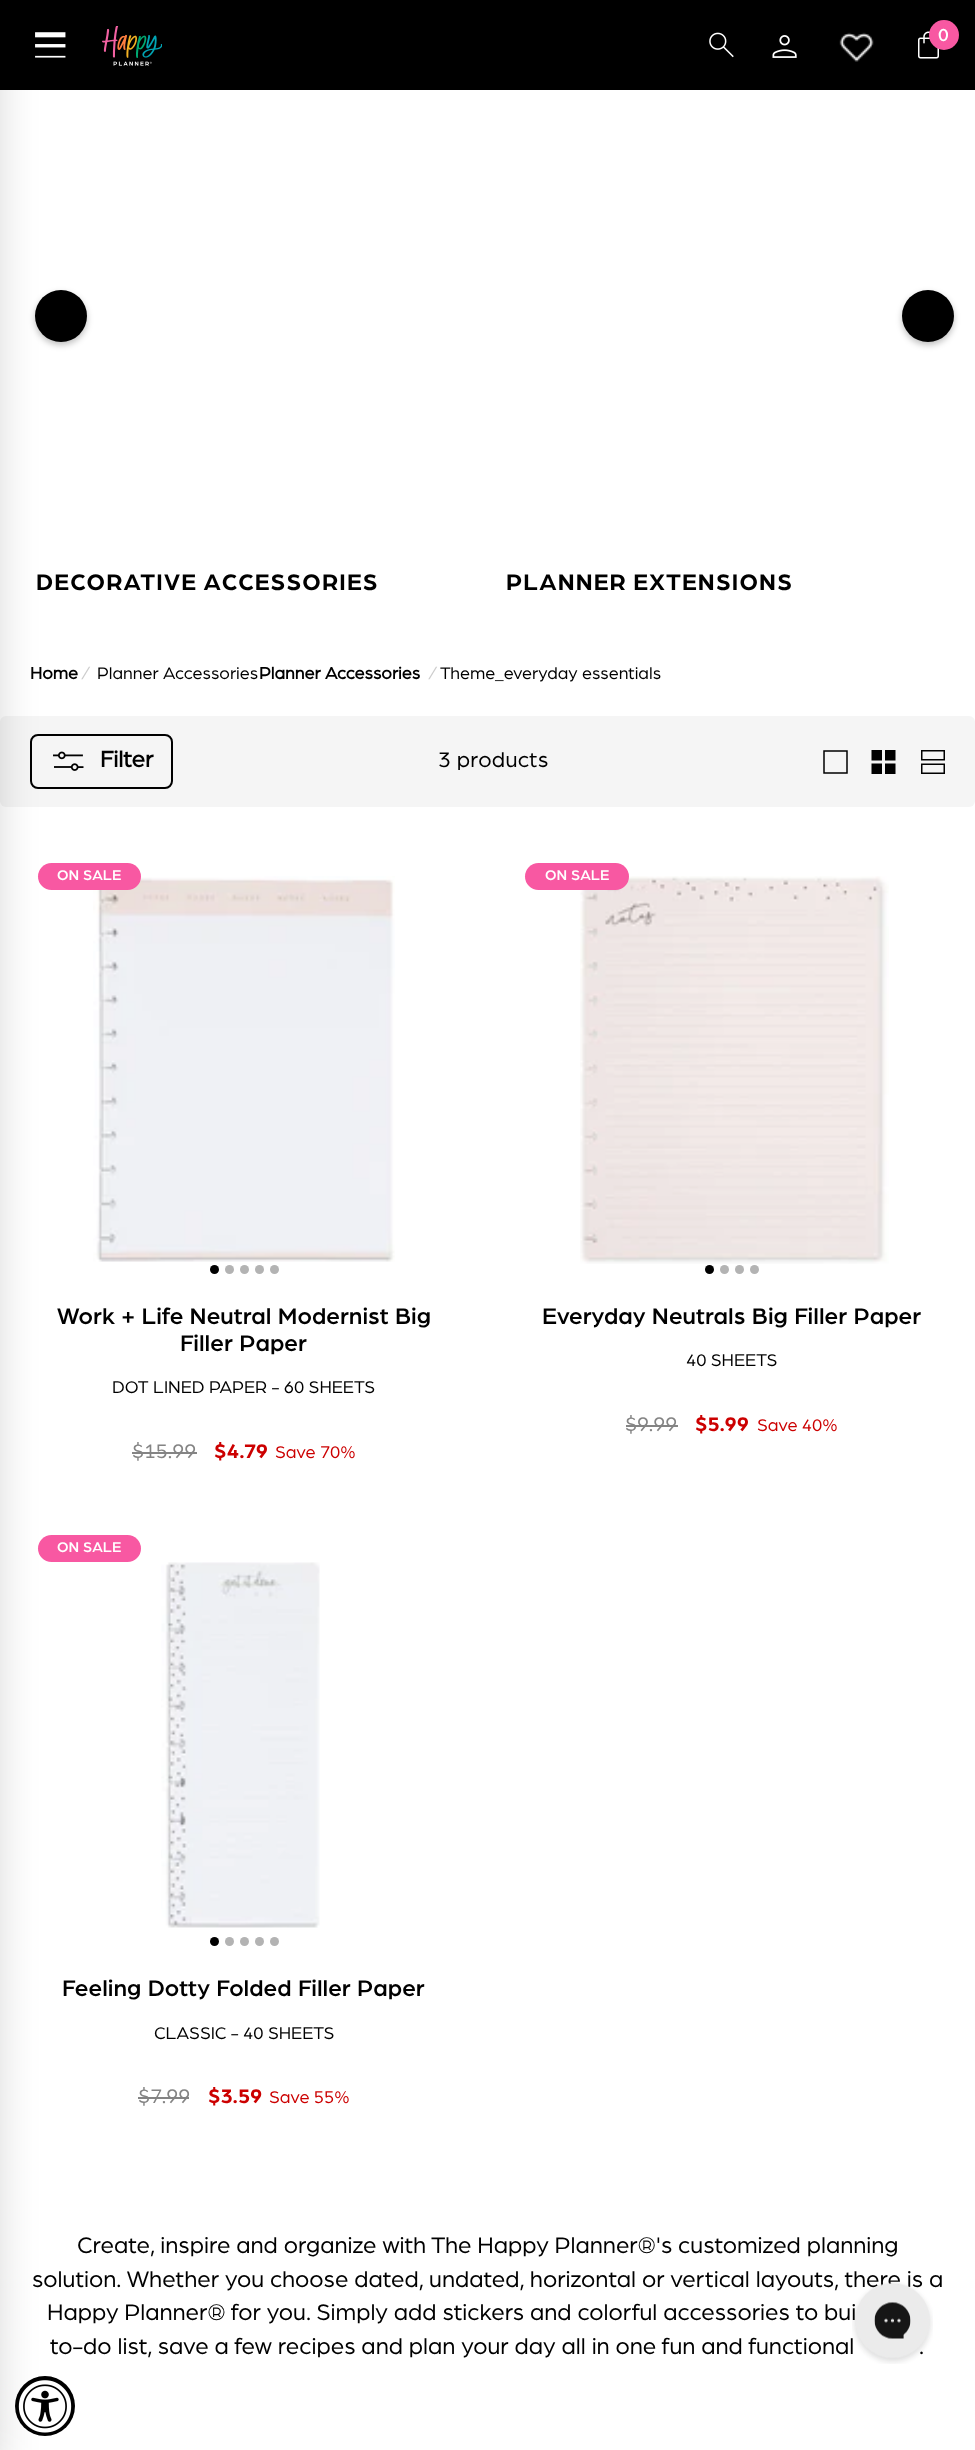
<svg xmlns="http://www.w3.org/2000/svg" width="975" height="2450">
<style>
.a{font:bold 18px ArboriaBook;fill:#fff}
.b{font:bold 24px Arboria;letter-spacing:1.2px;fill:#000}
.c{font:bold 17.8px ArboriaBook;fill:#000}
.d{font:17.8px ArboriaBook;fill:#ccc}
.e{font:17.8px ArboriaBook;fill:#000}
.f{font:bold 24px ArboriaBook;fill:#000}
.g{font:22.5px ArboriaBook;letter-spacing:0.25px;fill:#000}
.h{font:500 15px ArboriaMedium;fill:#fff}
.i{font:500 24px ArboriaMedium;fill:#000}
.j{font:18px ArboriaBook;fill:#000}
.k{font:21px ArboriaBook;fill:#848484}
.l{font:bold 21px Arboria;fill:#c00}
.m{font:18px ArboriaBook;fill:#c00}
.n{font:24px ArboriaBook;fill:#000}
</style>
<rect width="100%" height="100%" fill="#fff"/>
<path fill="#000" d="M0 0h975v90H0z"/>
<image href="1.png" x="35" y="32" width="31" height="26"/>
<rect fill="#00000040" filter="blur(3px)" x="35" y="293" width="52" height="52" rx="26"/>
<circle fill="#000" cx="61" cy="316" r="26"/>
<rect fill="#f5f5f5" y="716" width="975" height="91" rx="6"/>
<rect fill="none" stroke="#000" stroke-width="2" x="31" y="735" width="141" height="53" rx="7"/>
<image href="7.png" x="53" y="751" width="31" height="20"/>
<image href="10.png" x="93" y="876" width="302" height="386"/>
<rect fill="#f858a2" x="38" y="863" width="103" height="27" rx="13.5"/>
<rect fill="#f858a2" x="38" y="1535" width="103" height="27" rx="13.5"/>
<path fill="#00000026" filter="blur(19px)" d="M-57 15h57v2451H-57z"/>
<image href="2.png" x="102" y="26" width="60" height="40"/>
<image href="3.png" x="709" y="32" width="25" height="26"/>
<image href="4.png" x="772" y="35" width="25" height="23"/>
<image href="5.png" x="839" y="32" width="35" height="30"/>
<image href="6.png" x="918" y="31" width="21" height="28"/>
<circle fill="#f858a2" cx="944" cy="35" r="15"/>
<rect fill="#00000040" filter="blur(3px)" x="902" y="293" width="52" height="52" rx="26"/>
<circle fill="#000" cx="928" cy="316" r="26"/>
<path fill="none" stroke="#000" stroke-width="1.5" d="M824 751h23v22h-23z"/>
<image href="8.png" x="871" y="750" width="25" height="24"/>
<image href="9.png" x="921" y="750" width="24" height="24"/>
<circle fill="#000" cx="214.5" cy="1269.5" r="4.5"/>
<circle fill="#b3b3b3" cx="229.5" cy="1269.5" r="4.5"/>
<circle fill="#b3b3b3" cx="244.5" cy="1269.5" r="4.5"/>
<circle fill="#b3b3b3" cx="259.5" cy="1269.5" r="4.5"/>
<circle fill="#b3b3b3" cx="274.5" cy="1269.5" r="4.5"/>
<path fill="#848484" d="M132 1452h65v2H132z"/>
<image href="11.png" x="580" y="876" width="309" height="388"/>
<rect fill="#f858a2" x="525" y="863" width="104" height="27" rx="13.5"/>
<circle fill="#000" cx="709.5" cy="1269.5" r="4.5"/>
<circle fill="#b3b3b3" cx="724.5" cy="1269.5" r="4.5"/>
<circle fill="#b3b3b3" cx="739.5" cy="1269.5" r="4.5"/>
<circle fill="#b3b3b3" cx="754.5" cy="1269.5" r="4.5"/>
<path fill="#848484" d="M626 1425h52v2H626z"/>
<image href="12.png" x="161" y="1562" width="159" height="366"/>
<circle fill="#000" cx="214.5" cy="1941.5" r="4.5"/>
<circle fill="#b3b3b3" cx="229.5" cy="1941.5" r="4.5"/>
<circle fill="#b3b3b3" cx="244.5" cy="1941.5" r="4.5"/>
<circle fill="#b3b3b3" cx="259.5" cy="1941.5" r="4.5"/>
<circle fill="#b3b3b3" cx="274.5" cy="1941.5" r="4.5"/>
<path fill="#848484" d="M138 2097h51v2H138z"/>
<circle fill="#000" cx="45" cy="2406" r="30"/>
<image href="14.png" x="18" y="2380" width="54" height="53"/>
<text class="a" x="938" y="41">0</text>
<text class="b" x="36" y="590">DECORATIVE ACCESSORIES</text>
<text class="b" x="506" y="590">PLANNER EXTENSIONS</text>
<text class="c" x="30" y="679">Home</text>
<text class="d" x="81" y="679">/</text>
<text class="e" x="97" y="679">Planner Accessories</text>
<text class="c" x="259" y="679">Planner Accessories</text>
<text class="d" x="428" y="679">/</text>
<text class="e" x="440" y="679">Theme_everyday essentials</text>
<text class="f" x="100" y="767">Filter</text>
<text class="g" x="438" y="767">3 products</text>
<text class="h" x="57" y="880">ON SALE</text>
<text class="i" x="57" y="1324">Work + Life Neutral Modernist Big</text>
<text class="i" x="180" y="1351">Filler Paper</text>
<text class="j" x="112" y="1393">DOT LINED PAPER - 60 SHEETS</text>
<text class="k" x="132" y="1458">$15.99</text>
<text class="l" x="214" y="1458">$4.79</text>
<text class="m" x="275" y="1458">Save 70%</text>
<text class="h" x="545" y="880">ON SALE</text>
<text class="i" x="542" y="1324">Everyday Neutrals Big Filler Paper</text>
<text class="j" x="686" y="1366">40 SHEETS</text>
<text class="k" x="625" y="1431">$9.99</text>
<text class="l" x="695" y="1431">$5.99</text>
<text class="m" x="757" y="1431">Save 40%</text>
<text class="h" x="57" y="1552">ON SALE</text>
<text class="i" x="62" y="1996">Feeling Dotty Folded Filler Paper</text>
<text class="j" x="154" y="2039">CLASSIC - 40 SHEETS</text>
<text class="k" x="138" y="2103">$7.99</text>
<text class="l" x="208" y="2103">$3.59</text>
<text class="m" x="269" y="2103">Save 55%</text>
<text class="n" x="77" y="2253">Create, inspire and organize with The Happy Planner®'s customized planning</text>
<text class="n" x="32" y="2287">solution. Whether you choose dated, undated, horizontal or vertical layouts, there is a</text>
<text class="n" x="47" y="2320">Happy Planner® for you. Simply add stickers and colorful accessories to bui</text>
<text class="n" x="50" y="2354">to-do list, save a few recipes and plan your day all in one fun and functional</text>
<text class="n" x="919" y="2354">.</text>
<image href="13.png" x="852" y="2282" width="81" height="82"/>
</svg>
